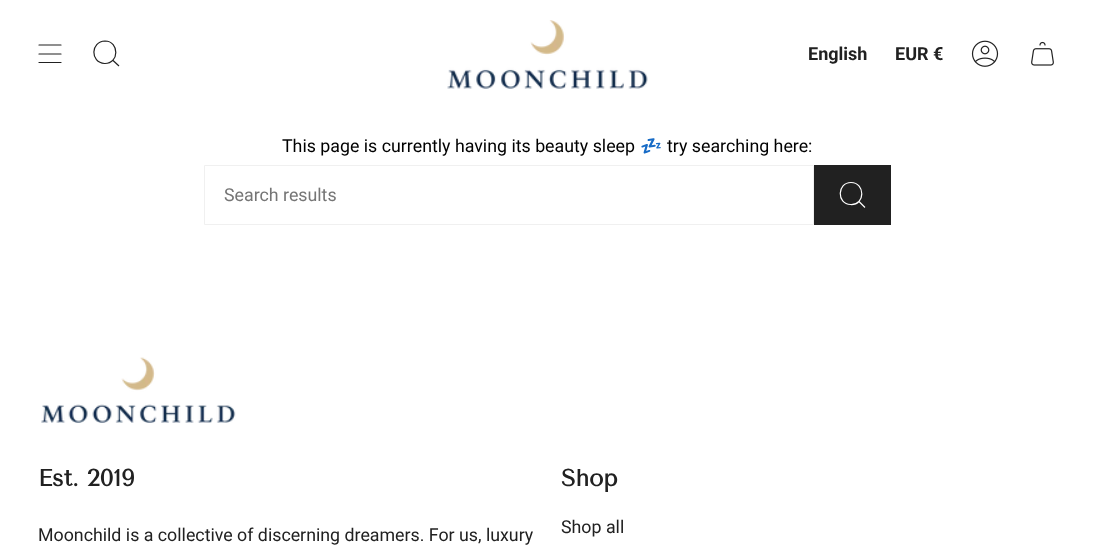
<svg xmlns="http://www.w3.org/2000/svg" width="1095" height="554">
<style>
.a{font:bold 18px Roboto;fill:#212121}
.b{font:17.8px Roboto;fill:#000}
.c{font:17.8px Noto Color Emoji;fill:#000}
.d{font:17.8px Roboto;fill:#757575}
.e{font:bold 23.5px Tenor Sans;fill:#212121}
.f{font:17.8px Roboto;fill:#212121}
</style>
<rect width="100%" height="100%" fill="#fff"/>
<path fill="none" stroke="#212121" stroke-width="1.2" stroke-linecap="round" stroke-linejoin="round" d="M39 45h22m-22 9h22m-22 8.5h22"/>
<path fill="none" stroke="#212121" stroke-width="1.2" d="M105 41c14.5 0 14.5 23-.5 22.5c-14.5-1-14-22 .5-22.5zm7.5 19l6.5 6"/>
<image href="1.png" x="447" y="20" width="201" height="69"/>
<image href="2.png" x="971" y="40" width="28" height="27"/>
<image href="3.png" x="1031" y="41" width="23" height="25"/>
<path fill="none" stroke="#f0f0f0" d="M204.5 165.5h609v59H204.5z"/>
<path fill="#212121" d="M814 165h77v60H814z"/>
<path fill="none" stroke="#fff" stroke-width="1.2" d="M851 182.5c14.5 0 14.5 23-.5 22c-14-.5-13.5-22 .5-22zm8 19l6 6"/>
<image href="4.png" x="41" y="357" width="195" height="66"/>
<text class="a" x="808" y="60">English</text>
<text class="a" x="895" y="60">EUR €</text>
<text class="b" x="282" y="152">This page is currently having its beauty sleep</text>
<text class="c" x="640" y="152">💤</text>
<text class="b" x="667" y="152">try searching here:</text>
<text class="d" x="224" y="201">Search results</text>
<text class="e" x="38" y="486">Est. 2019</text>
<text class="f" x="38" y="541">Moonchild is a collective of discerning dreamers. For us, luxury</text>
<text class="e" x="561" y="486">Shop</text>
<text class="f" x="561" y="533">Shop all</text>
</svg>
